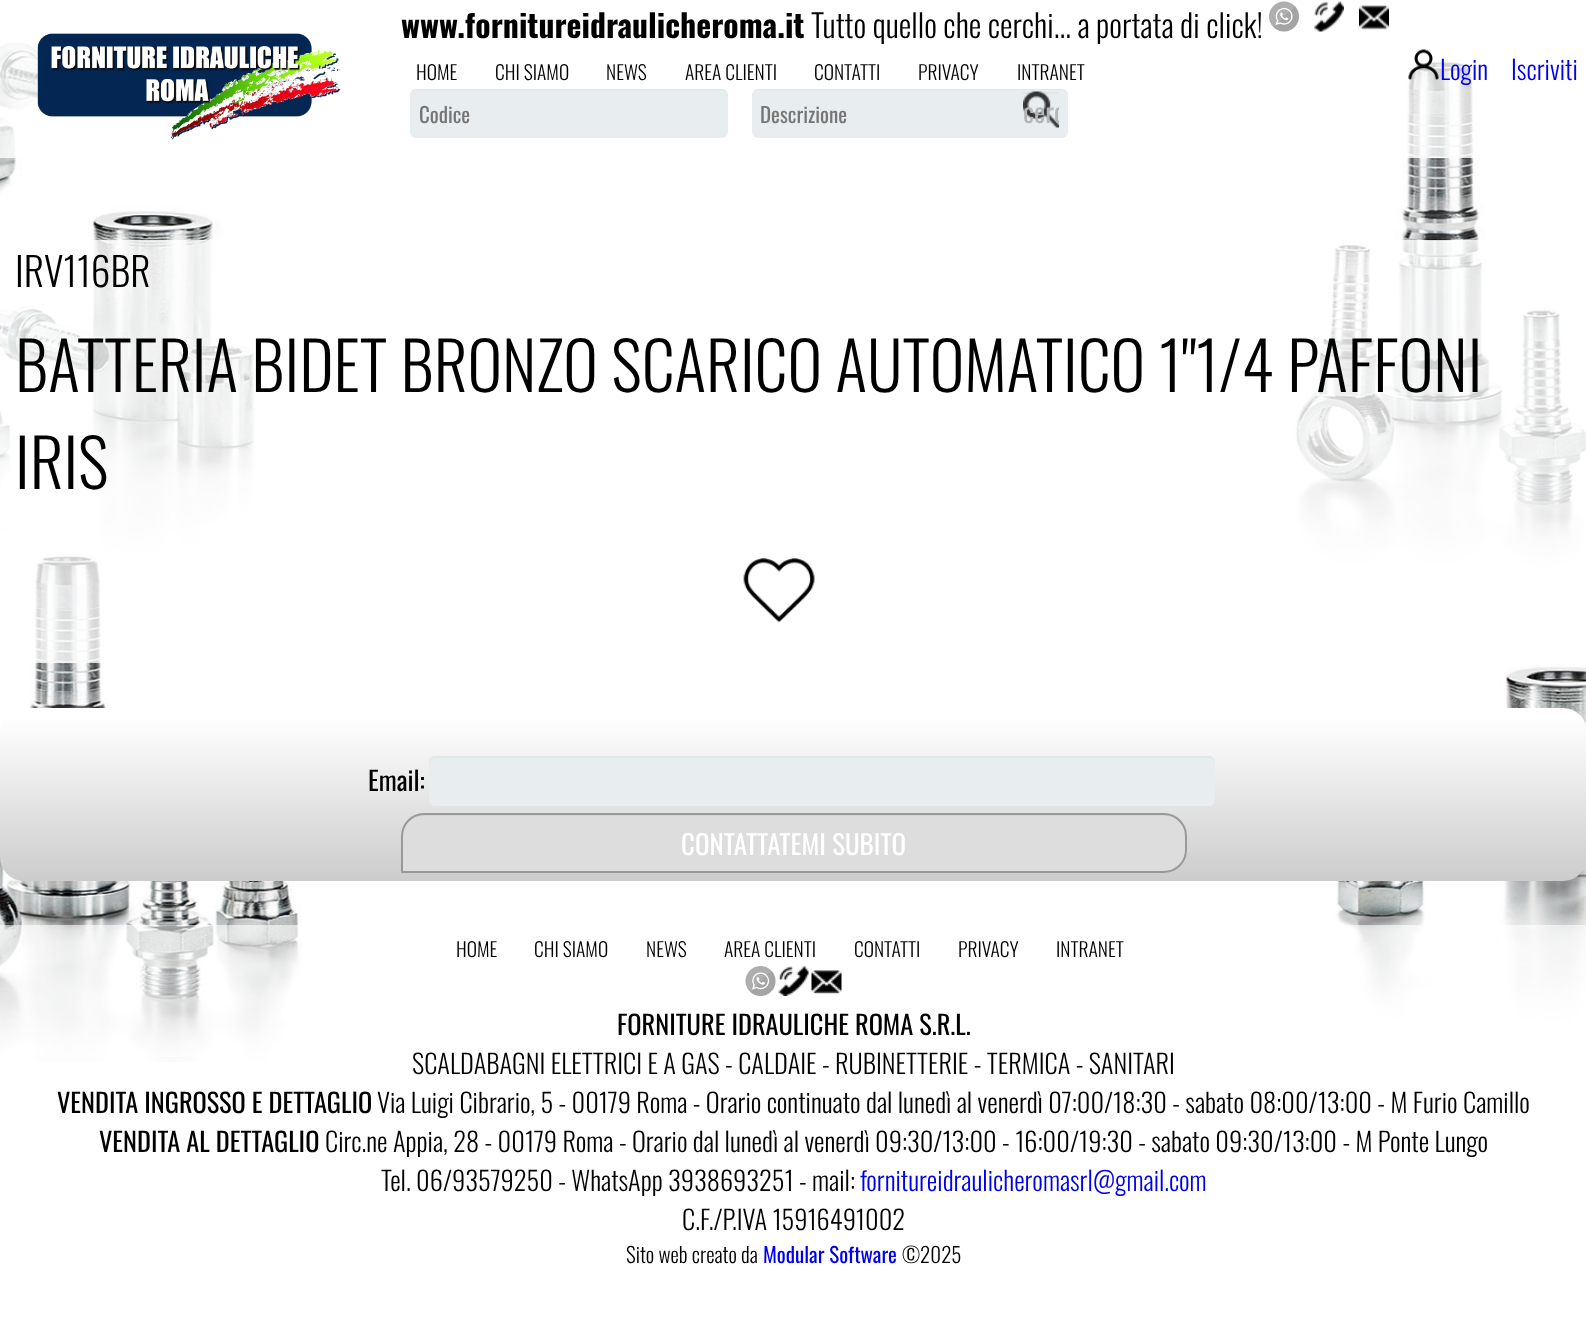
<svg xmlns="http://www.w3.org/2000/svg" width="1586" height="1322">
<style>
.a{font:bold 31.75px Oswald;fill:#000}
.b{font:300 31.75px Oswald;fill:#000}
.c{font:300 19.5px Oswald;fill:#000}
.d{font:300 26.4px Oswald;fill:#00e}
.e{font:21px Oswald;fill:#757575}
.f{font:27px Oswald;fill:#b3b7b8}
.g{font:300 39.5px Oswald;fill:#000}
.h{font:300 66px Oswald;fill:#000}
.i{font:26.4px Oswald;fill:#000}
.j{font:27px Oswald;fill:#fff}
.k{font:300 26.4px Oswald;fill:#000}
.l{font:300 21px Oswald;fill:#000}
.m{font:21px Oswald;fill:#00e}
</style>
<defs>
<linearGradient id="g1" gradientUnits="userSpaceOnUse" x1="0" y1="708" x2="0" y2="881"><stop offset="0.05" stop-color="#fff"/><stop offset="1" stop-color="#ccc"/></linearGradient>
<clipPath id="clip1"><path d="M1023 92h36v36H1023z"/></clipPath>
</defs>
<rect width="100%" height="100%" fill="#fff"/>
<image href="1.png" x="0" y="42" width="1586" height="1020"/>
<path fill="#ffffffcc" d="M0 42h1477v116H0z"/>
<image href="2.png" x="1269" y="1" width="30" height="31"/>
<image href="3.png" x="1314" y="1" width="30" height="31"/>
<image href="4.png" x="1359" y="5" width="30" height="25"/>
<image href="5.png" x="37" y="33" width="304" height="107"/>
<image href="6.png" x="1408" y="49" width="31" height="31"/>
<rect fill="#e8eeef" x="410" y="89" width="318" height="49" rx="6"/>
<path fill="#00000008" d="M416 90h306c3 0 6 3 6 6v-1c0-3-3-6-6-6h-306c-3 0-6 3-6 6v1c0-3 2-6 6-6z"/>
<rect fill="#e8eeef" x="752" y="89" width="316" height="49" rx="6"/>
<path fill="#00000008" d="M758 90h304c3 0 6 3 6 6v-1c0-3-3-6-6-6h-304c-3 0-6 3-6 6v1c0-3 2-6 6-6z"/>
<image href="7.png" x="1023" y="91" width="36" height="37"/>
<path fill="#00000008" d="M1023 92h36v2H1023z"/>
<path fill="#ffffffcc" d="M0 240h1586v423H0z"/>
<image href="8.png" x="743" y="558" width="72" height="65"/>
<rect fill="url(#g1)" y="708" width="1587" height="173" rx="24"/>
<rect fill="#e8eeef" x="429" y="756" width="786" height="50" rx="6"/>
<path fill="#e1e7e8" d="M435 758h774c3 0 6 2 6 6v-2c0-3-3-6-6-6h-774c-3 0-6 3-6 6v2c0-4 3-6 6-6z"/>
<path fill="#ddd" d="M424 813h740c12.5 0 23 10.5 23 23v14c0 12.5-10.5 23-23 23h-763v-37c0-12.5 10.5-23 23-23z"/>
<path fill="#d6d6d6" d="M423 816h741c12 0 21 9 21 21v-1c0-12-9-21-21-21h-741c-12 0-21 9-21 21v1c0-12 9-21 21-21z"/>
<path fill="none" stroke="#999" stroke-width="2" d="M424 814h740c12 0 22 10 22 22v14c0 12-10 22-22 22h-762v-36c0-12 10-22 22-22z"/>
<path fill="#ffffff99" d="M0 925h1586v132H0z"/>
<image href="9.png" x="745" y="966" width="31" height="30"/>
<image href="10.png" x="778" y="966" width="31" height="30"/>
<image href="11.png" x="811" y="970" width="31" height="24"/>
<text class="a" x="401" y="38">www.fornitureidraulicheroma.it</text>
<text class="b" x="811" y="38">Tutto quello che cerchi... a portata di click!</text>
<text class="c" x="416" y="80">HOME</text>
<text class="c" x="495" y="80">CHI SIAMO</text>
<text class="c" x="606" y="80">NEWS</text>
<text class="c" x="685" y="80">AREA CLIENTI</text>
<text class="c" x="814" y="80">CONTATTI</text>
<text class="c" x="918" y="80">PRIVACY</text>
<text class="c" x="1017" y="80">INTRANET</text>
<text class="d" x="1440" y="80">Login</text>
<text class="d" x="1511" y="80">Iscriviti</text>
<text class="e" x="419" y="123">Codice</text>
<text class="e" x="760" y="123">Descrizione</text>
<g clip-path="url(#clip1)">
<text class="f" x="1023" y="123">cerc</text>
</g>
<text class="g" x="15" y="287">IRV116BR</text>
<text class="h" x="15" y="392">BATTERIA BIDET BRONZO SCARICO AUTOMATICO 1"1/4 PAFFONI</text>
<text class="h" x="15" y="489">IRIS</text>
<text class="i" x="368" y="791">Email:</text>
<text class="j" x="681" y="855">CONTATTATEMI SUBITO</text>
<text class="c" x="456" y="957">HOME</text>
<text class="c" x="534" y="957">CHI SIAMO</text>
<text class="c" x="646" y="957">NEWS</text>
<text class="c" x="724" y="957">AREA CLIENTI</text>
<text class="c" x="854" y="957">CONTATTI</text>
<text class="c" x="958" y="957">PRIVACY</text>
<text class="c" x="1056" y="957">INTRANET</text>
<text class="i" x="617" y="1035">FORNITURE IDRAULICHE ROMA S.R.L.</text>
<text class="k" x="412" y="1074">SCALDABAGNI ELETTRICI E A GAS - CALDAIE - RUBINETTERIE - TERMICA - SANITARI</text>
<text class="i" x="57" y="1113">VENDITA INGROSSO E DETTAGLIO</text>
<text class="k" x="377" y="1113">Via Luigi Cibrario, 5 - 00179 Roma - Orario continuato dal lunedì al venerdì 07:00/18:30 - sabato 08:00/13:00 - M Furio Camillo</text>
<text class="i" x="99" y="1152">VENDITA AL DETTAGLIO</text>
<text class="k" x="325" y="1152">Circ.ne Appia, 28 - 00179 Roma - Orario dal lunedì al venerdì 09:30/13:00 - 16:00/19:30 - sabato 09:30/13:00 - M Ponte Lungo</text>
<text class="k" x="381" y="1191">Tel. 06/93579250 - WhatsApp 3938693251 - mail:</text>
<text class="d" x="860" y="1191">fornitureidraulicheromasrl@gmail.com</text>
<text class="k" x="682" y="1230">C.F./P.IVA 15916491002</text>
<text class="l" x="626" y="1263">Sito web creato da</text>
<text class="m" x="763" y="1263">Modular Software</text>
<text class="l" x="902" y="1263">©2025</text>
</svg>
